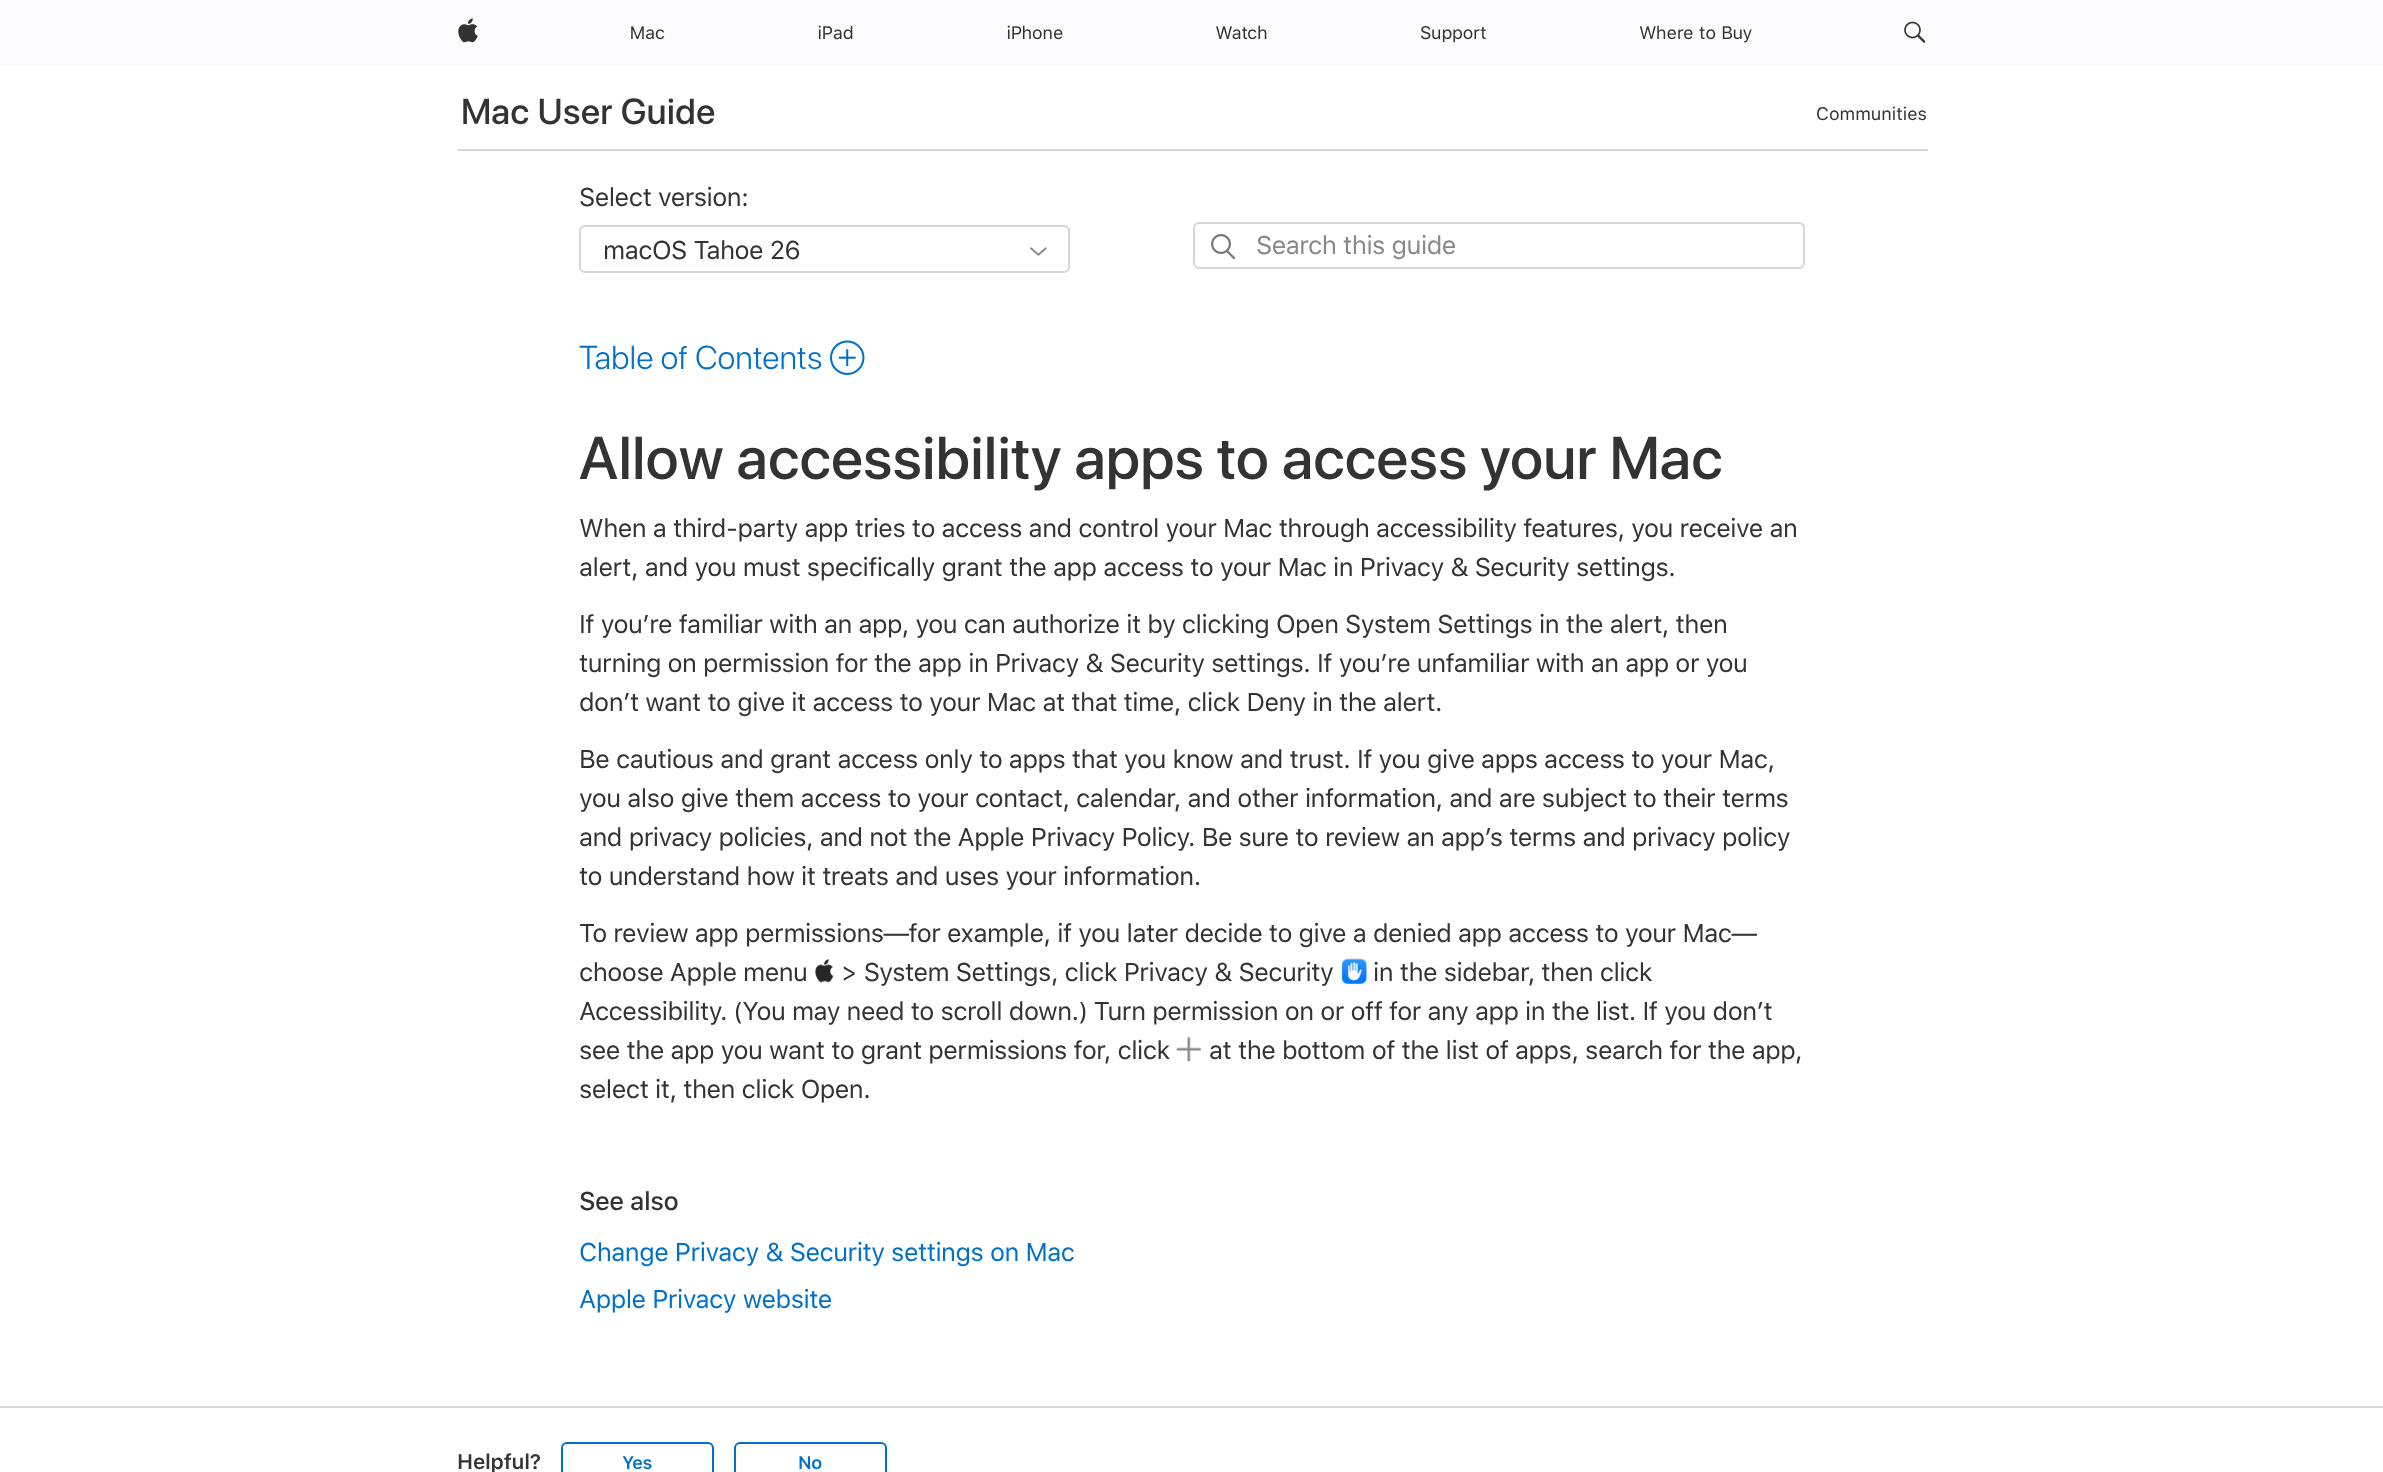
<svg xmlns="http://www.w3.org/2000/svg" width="2383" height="1472">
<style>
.a{font:500 36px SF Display;letter-spacing:0.5px;fill:#333}
.b{font:18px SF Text;fill:#333}
.c{font:25.5px SF Text;letter-spacing:-0.54px;fill:#333}
.d{font:25.5px SF Text;letter-spacing:-0.54px;fill:#888}
.e{font:300 33px SF Display;letter-spacing:0.5px;fill:#0070c9}
.f{font:500 60px SF Display;letter-spacing:0.5px;fill:#333}
.g{font:500 25.5px SF Text;letter-spacing:-0.54px;fill:#333}
.h{font:25.5px SF Text;letter-spacing:-0.54px;fill:#0070c9}
.i{font:600 21px SF Text;letter-spacing:-0.25px;fill:#333}
.j{font:600 18px SF Text;letter-spacing:-0.5px;fill:#0070c9}
</style>
<rect width="100%" height="100%" fill="#fff"/>
<path fill="#fbfbfd" d="M0 0h2383v66H0z"/>
<image href="1.png" x="458" y="18" width="20" height="25"/>
<image href="2.png" x="631" y="26" width="34" height="14"/>
<image href="3.png" x="818" y="25" width="35" height="15"/>
<image href="4.png" x="1007" y="25" width="56" height="15"/>
<image href="5.png" x="1216" y="25" width="51" height="15"/>
<image href="6.png" x="1421" y="26" width="65" height="17"/>
<image href="7.png" x="1640" y="25" width="112" height="18"/>
<image href="8.png" x="1904" y="21" width="22" height="22"/>
<path fill="#d6d6d6" d="M458 149h1470v2H458z"/>
<rect fill="none" stroke="#d6d6d6" stroke-width="2" x="580" y="226" width="489" height="46" rx="5"/>
<image href="9.png" x="1030" y="247" width="17" height="9"/>
<rect fill="none" stroke="#d6d6d6" stroke-width="2" x="1194" y="223" width="610" height="45" rx="5"/>
<image href="10.png" x="1211" y="234" width="25" height="26"/>
<image href="11.png" x="830" y="340" width="35" height="35"/>
<image href="12.png" x="815" y="959" width="19" height="24"/>
<image href="13.png" x="1341" y="958" width="26" height="26"/>
<image href="14.png" x="1176" y="1036" width="26" height="26"/>
<path fill="#d9d9d9" d="M0 1406h2383v2H0z"/>
<rect fill="none" stroke="#0070c9" stroke-width="2" x="562" y="1443" width="151" height="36" rx="5"/>
<rect fill="none" stroke="#0070c9" stroke-width="2" x="735" y="1443" width="151" height="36" rx="5"/>
<text class="a" x="461" y="124">Mac User Guide</text>
<text class="b" x="1816" y="120">Communities</text>
<text class="c" x="579" y="206">Select version:</text>
<text class="c" x="603" y="259">macOS Tahoe 26</text>
<text class="d" x="1256" y="254">Search this guide</text>
<text class="e" x="579" y="369">Table of Contents</text>
<text class="f" x="579" y="479">Allow accessibility apps to access your Mac</text>
<text class="c" x="579" y="537">When a third-party app tries to access and control your Mac through accessibility features, you receive an</text>
<text class="c" x="579" y="576">alert, and you must specifically grant the app access to your Mac in Privacy &amp; Security settings.</text>
<text class="c" x="579" y="633">If you’re familiar with an app, you can authorize it by clicking Open System Settings in the alert, then</text>
<text class="c" x="579" y="672">turning on permission for the app in Privacy &amp; Security settings. If you’re unfamiliar with an app or you</text>
<text class="c" x="579" y="711">don’t want to give it access to your Mac at that time, click Deny in the alert.</text>
<text class="c" x="579" y="768">Be cautious and grant access only to apps that you know and trust. If you give apps access to your Mac,</text>
<text class="c" x="579" y="807">you also give them access to your contact, calendar, and other information, and are subject to their terms</text>
<text class="c" x="579" y="846">and privacy policies, and not the Apple Privacy Policy. Be sure to review an app’s terms and privacy policy</text>
<text class="c" x="579" y="885">to understand how it treats and uses your information.</text>
<text class="c" x="579" y="942">To review app permissions—for example, if you later decide to give a denied app access to your Mac—</text>
<text class="c" x="579" y="981">choose Apple menu</text>
<text class="c" x="841" y="981">&gt; System Settings, click Privacy &amp; Security</text>
<text class="c" x="1373" y="981">in the sidebar, then click</text>
<text class="c" x="579" y="1020">Accessibility. (You may need to scroll down.) Turn permission on or off for any app in the list. If you don’t</text>
<text class="c" x="579" y="1059">see the app you want to grant permissions for, click</text>
<text class="c" x="1209" y="1059">at the bottom of the list of apps, search for the app,</text>
<text class="c" x="579" y="1098">select it, then click Open.</text>
<text class="g" x="579" y="1210">See also</text>
<text class="h" x="579" y="1261">Change Privacy &amp; Security settings on Mac</text>
<text class="h" x="579" y="1308">Apple Privacy website</text>
<text class="i" x="457" y="1469">Helpful?</text>
<text class="j" x="622" y="1469">Yes</text>
<text class="j" x="798" y="1469">No</text>
</svg>
